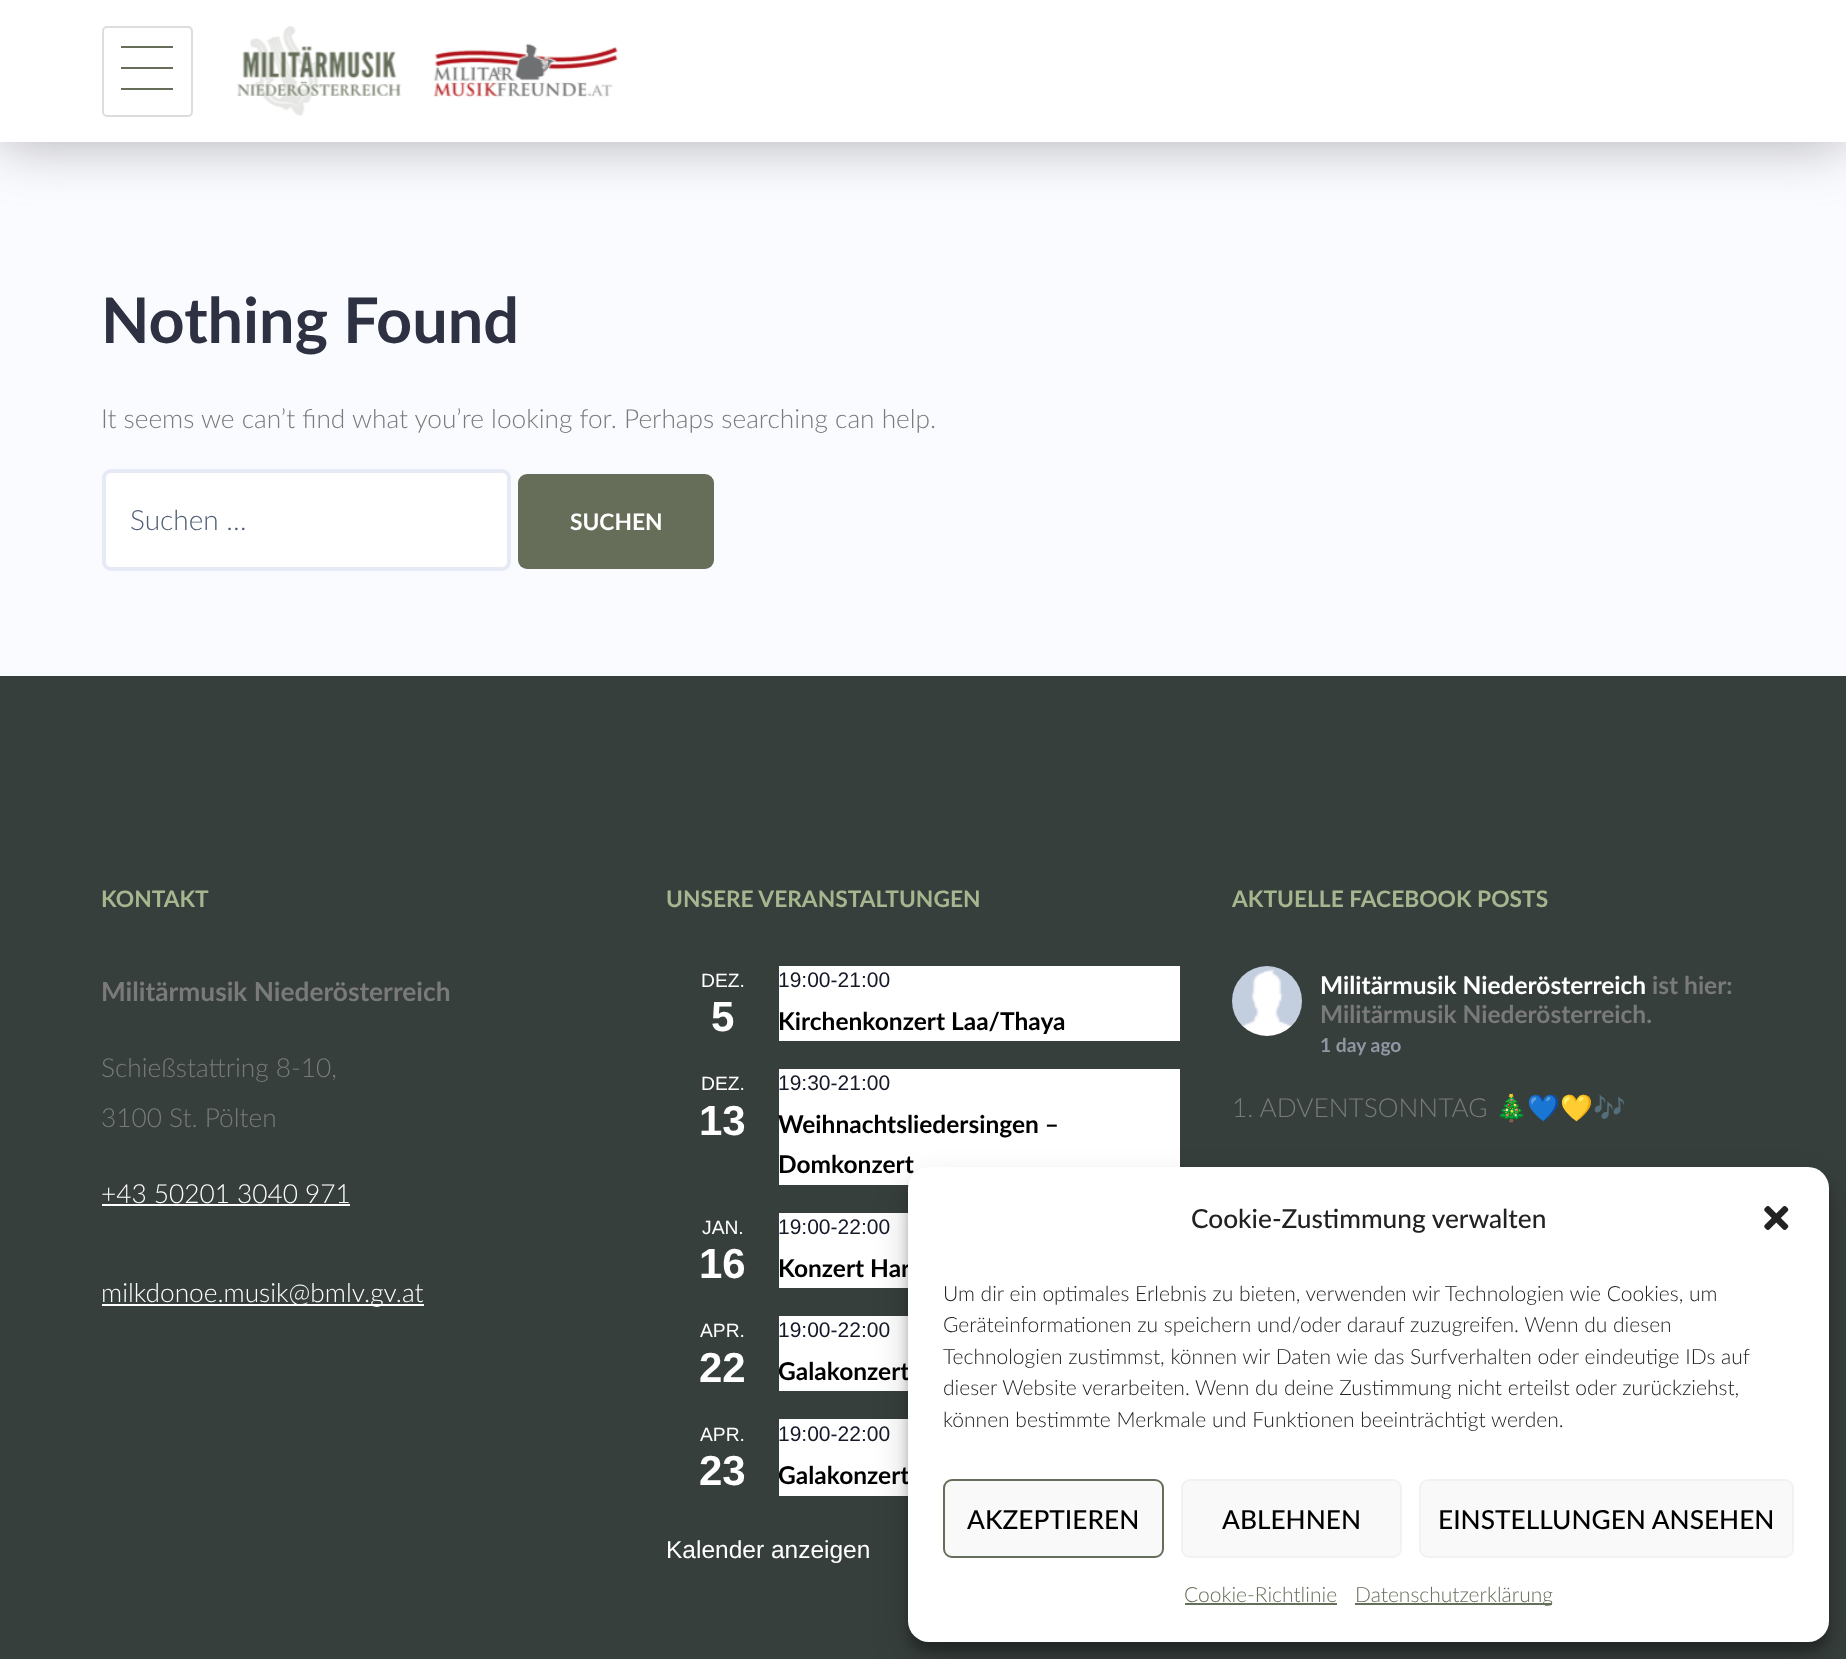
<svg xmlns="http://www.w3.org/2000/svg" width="1846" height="1659">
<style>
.a{font:bold 63px Lato;fill:#2d3142}
.b{font:300 26.25px Lato;fill:#7a7a7a}
.c{font:300 28px Lato;fill:#4f5d75}
.d{font:bold 22.75px Lato;fill:#fff}
.e{font:bold 22.75px Lato;fill:#a6b78f}
.f{font:bold 26.25px Lato;fill:#7a7a7a}
.g{font:300 26.25px Lato;fill:#fff}
.h{font:19.25px Liberation Sans;fill:#fff}
.i{font:bold 42px Liberation Sans;fill:#fff}
.j{font:21px Liberation Sans;fill:#141827}
.k{font:bold 24.5px Lato;fill:#000}
.l{font:24.5px Liberation Sans;fill:#fff}
.m{font:bold 24.5px Lato;fill:#fff}
.n{font:bold 24.5px Lato;fill:#7a7a7a}
.o{font:bold 19.25px Lato;fill:#9197a3}
.p{font:26.25px Noto Color Emoji;fill:#7a7a7a}
.q{font:500 26.25px Lato;fill:#222}
.r{font:300 21px Lato;fill:#222}
.s{font:500 26.25px Lato;fill:#000}
.t{font:300 21px Lato;fill:#656e5a}
</style>
<defs>
<clipPath id="clip1"><path d="M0 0h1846v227h-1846zm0 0h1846v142h-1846z" clip-rule="evenodd"/></clipPath>
</defs>
<rect width="100%" height="100%" fill="#fafbff"/>
<g clip-path="url(#clip1)">
<path fill="#7a7a7a99" filter="blur(28px)" d="M0 0h1846v142H0z"/>
</g>
<path fill="#ffffffe6" d="M0 0h1846v142H0z"/>
<rect fill="none" stroke="#ddd" stroke-width="2" x="103" y="27" width="89" height="89" rx="4"/>
<path fill="#666e59" d="M121 46h52v2H121z"/>
<path fill="#666e59" d="M121 67h52v2H121z"/>
<path fill="#666e59" d="M121 88h52v2H121z"/>
<image href="1.png" x="237" y="26" width="381" height="90"/>
<rect fill="#fff" stroke="#e5eaf5" stroke-width="4" x="104" y="471" width="405" height="98" rx="7"/>
<rect fill="#666e59" x="518" y="474" width="196" height="95" rx="9"/>
<path fill="#373f3d" d="M0 676h1846v983H0z"/>
<path fill="#fff" d="M102 1204h248v2H102z"/>
<path fill="#fff" d="M102 1304h322v2H102z"/>
<path fill="#fff" d="M779 966h401v75H779z"/>
<path fill="#fff" d="M779 1069h401v116H779z"/>
<path fill="#fff" d="M779 1213h129v75H779z"/>
<path fill="#fff" d="M779 1316h129v75H779z"/>
<path fill="#fff" d="M779 1419h129v77H779z"/>
<image href="2.png" x="1232" y="966" width="70" height="70"/>
<rect fill="#0000003b" filter="blur(5px)" x="908" y="1178" width="921" height="474" rx="21"/>
<rect fill="#00000030" filter="blur(17.5px)" x="908" y="1185" width="921" height="474" rx="21"/>
<text class="a" x="101" y="343">Nothing Found</text>
<text class="b" x="101" y="428">It seems we can’t find what you’re looking for. Perhaps searching can help.</text>
<text class="c" x="130" y="530">Suchen …</text>
<text class="d" x="570" y="530">SUCHEN</text>
<text class="e" x="101" y="907">KONTAKT</text>
<text class="f" x="101" y="1001">Militärmusik Niederösterreich</text>
<text class="b" x="101" y="1077">Schießstattring 8-10,</text>
<text class="b" x="101" y="1127">3100 St. Pölten</text>
<text class="g" x="101" y="1203">+43 50201 3040 971</text>
<text class="g" x="101" y="1302">milkdonoe.musik@bmlv.gv.at</text>
<text class="e" x="666" y="907">UNSERE VERANSTALTUNGEN</text>
<text class="h" x="701" y="987">DEZ.</text>
<text class="i" x="711" y="1031">5</text>
<text class="j" x="778" y="987">19:00-21:00</text>
<text class="k" x="778" y="1030">Kirchenkonzert Laa/Thaya</text>
<text class="h" x="701" y="1090">DEZ.</text>
<text class="i" x="699" y="1135">13</text>
<text class="j" x="778" y="1090">19:30-21:00</text>
<text class="k" x="778" y="1133">Weihnachtsliedersingen –</text>
<text class="k" x="778" y="1173">Domkonzert</text>
<text class="h" x="702" y="1234">JAN.</text>
<text class="i" x="699" y="1278">16</text>
<text class="j" x="778" y="1234">19:00-22:00</text>
<text class="k" x="778" y="1277">Konzert Har</text>
<text class="h" x="700" y="1337">APR.</text>
<text class="i" x="699" y="1382">22</text>
<text class="j" x="778" y="1337">19:00-22:00</text>
<text class="k" x="778" y="1380">Galakonzert</text>
<text class="h" x="700" y="1441">APR.</text>
<text class="i" x="699" y="1485">23</text>
<text class="j" x="778" y="1441">19:00-22:00</text>
<text class="k" x="778" y="1484">Galakonzert</text>
<text class="l" x="666" y="1558">Kalender anzeigen</text>
<text class="e" x="1232" y="907">AKTUELLE FACEBOOK POSTS</text>
<text class="m" x="1320" y="994">Militärmusik Niederösterreich</text>
<text class="n" x="1652" y="994">ist hier:</text>
<text class="n" x="1320" y="1023">Militärmusik Niederösterreich.</text>
<text class="o" x="1320" y="1052">1 day ago</text>
<text class="b" x="1232" y="1117">1. ADVENTSONNTAG</text>
<text class="p" x="1495" y="1117">🎄💙💛🎶</text>
<rect fill="#fff" x="908" y="1167" width="921" height="475" rx="21"/>
<text class="q" x="1191" y="1228">Cookie-Zustimmung verwalten</text>
<image href="3.png" x="1764" y="1206" width="25" height="24"/>
<text class="r" x="943" y="1301">Um dir ein optimales Erlebnis zu bieten, verwenden wir Technologien wie Cookies, um</text>
<text class="r" x="943" y="1332">Geräteinformationen zu speichern und/oder darauf zuzugreifen. Wenn du diesen</text>
<text class="r" x="943" y="1364">Technologien zustimmst, können wir Daten wie das Surfverhalten oder eindeutige IDs auf</text>
<text class="r" x="943" y="1395">dieser Website verarbeiten. Wenn du deine Zustimmung nicht erteilst oder zurückziehst,</text>
<text class="r" x="943" y="1427">können bestimmte Merkmale und Funktionen beeinträchtigt werden.</text>
<rect fill="#f9f9f9" stroke="#656e5a" stroke-width="2" x="944" y="1480" width="219" height="77" rx="8"/>
<text class="s" x="967" y="1529">AKZEPTIEREN</text>
<rect fill="#f9f9f9" stroke="#f2f2f2" stroke-width="2" x="1182" y="1480" width="219" height="77" rx="8"/>
<text class="s" x="1222" y="1529">ABLEHNEN</text>
<rect fill="#f9f9f9" stroke="#f2f2f2" stroke-width="2" x="1420" y="1480" width="373" height="77" rx="8"/>
<text class="s" x="1438" y="1529">EINSTELLUNGEN ANSEHEN</text>
<text class="t" x="1184" y="1602">Cookie-Richtlinie</text>
<path fill="#656e5a" d="M1185 1603h152v2H1185z"/>
<path fill="#656e5a" d="M1355 1603h197v2H1355z"/>
<text class="t" x="1355" y="1602">Datenschutzerklärung</text>
</svg>
